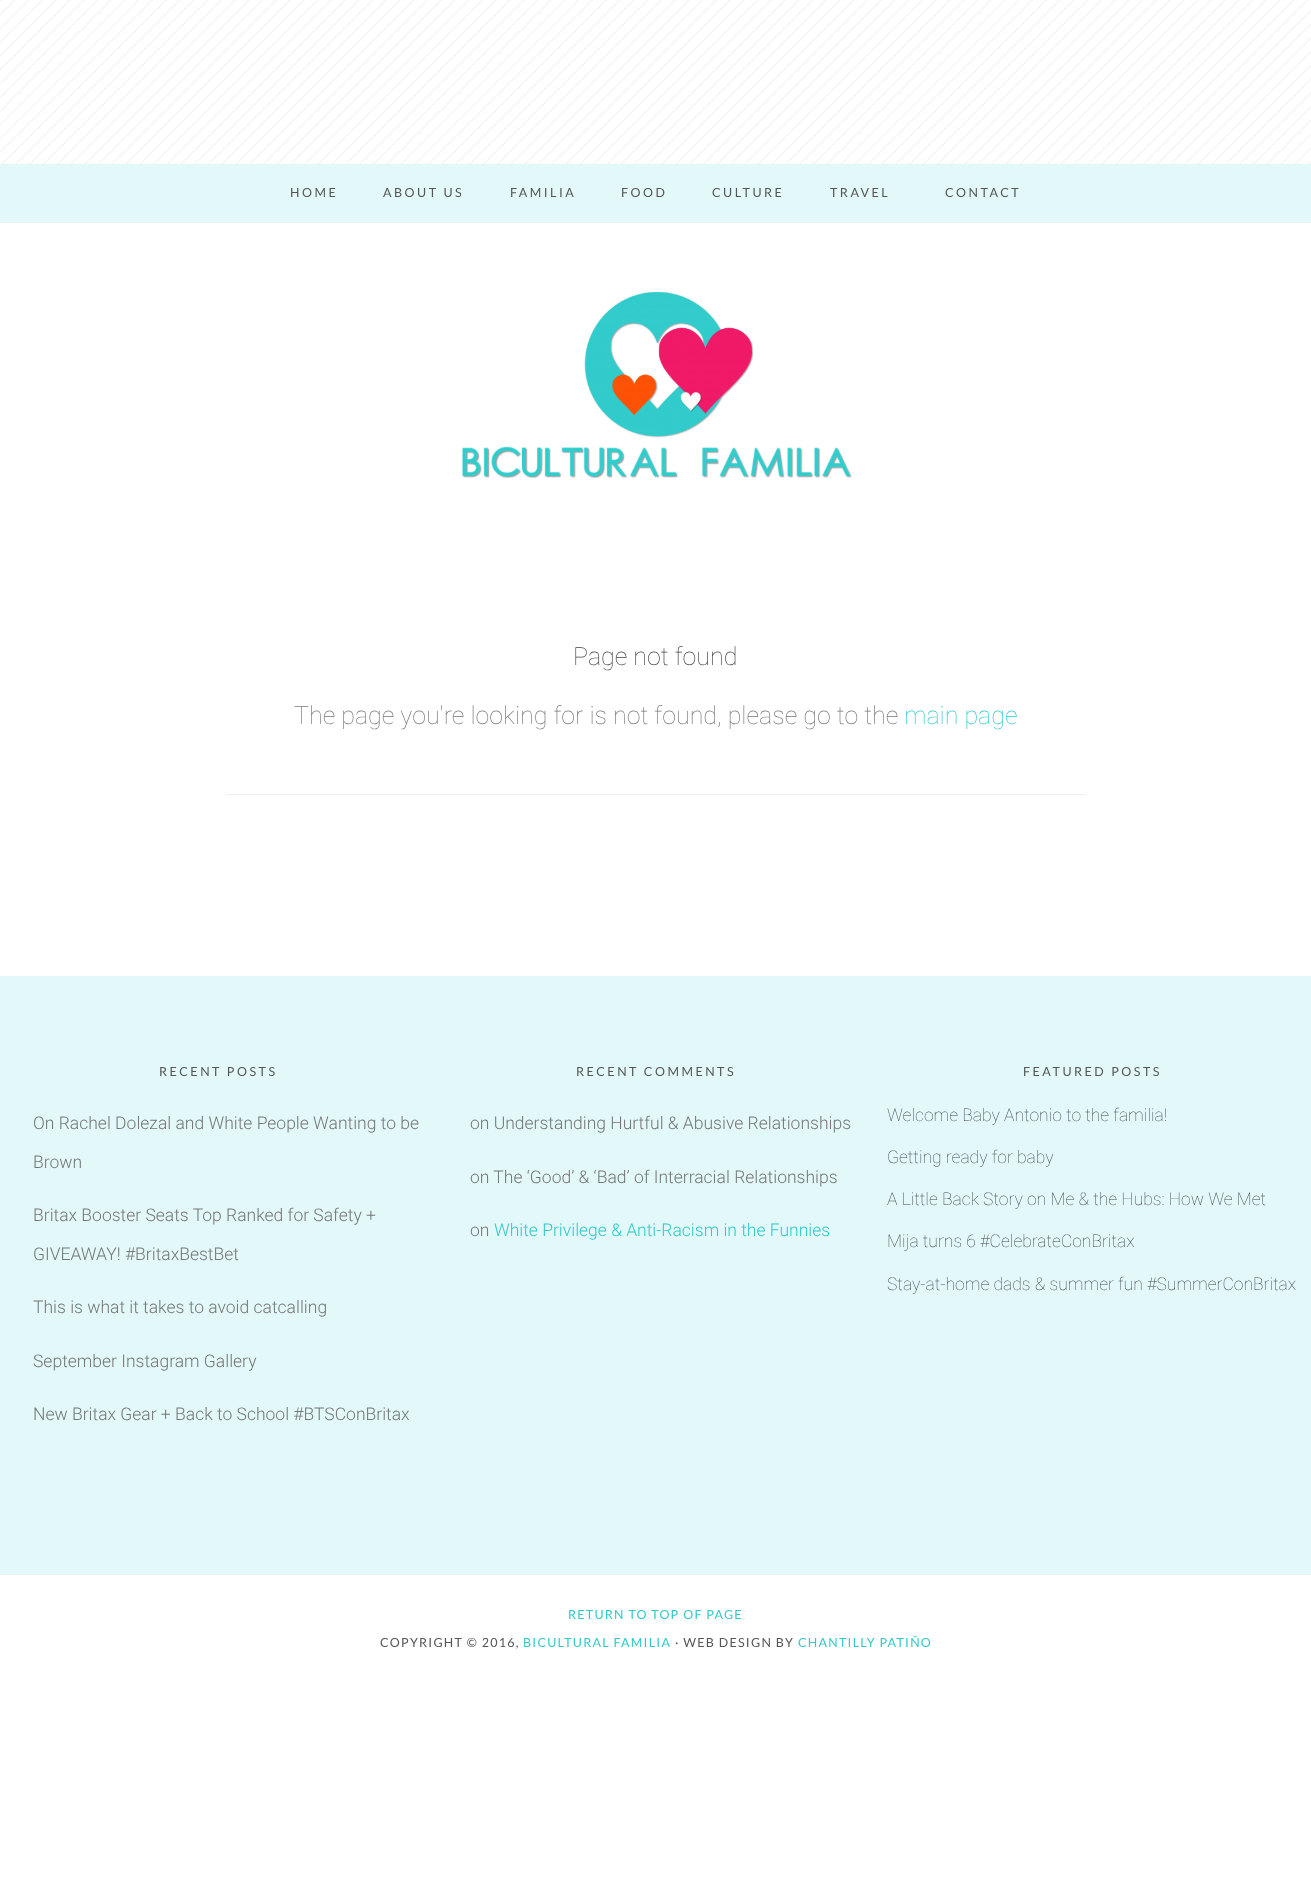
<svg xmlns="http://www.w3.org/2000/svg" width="1311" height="1900">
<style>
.a{font:12.5px Lato;letter-spacing:2.5px;fill:#555}
.b{font:100 25px Roboto;fill:#444}
.c{font:100 25px Roboto;fill:#777}
.d{font:100 25px Roboto;fill:#31caca}
.e{font:300 17.5px Roboto;fill:#777}
.f{font:300 17.5px Roboto;fill:#31caca}
.g{font:100 17.5px Roboto;fill:#444}
.h{font:12.5px Lato;letter-spacing:1.25px;fill:#31caca}
.i{font:12.5px Lato;letter-spacing:1.25px;fill:#555}
</style>
<rect width="100%" height="100%" fill="#fff"/>
<path fill="#eee" d="M0 0h1311v164H0z"/>
<image href="1.png" x="0" y="0" width="1311" height="164"/>
<path fill="#e2f8f9" d="M0 164h1311v59H0z"/>
<image href="2.png" x="462" y="291" width="390" height="187"/>
<path fill="#eee" d="M226 794h860v1H226z"/>
<path fill="#e2f8f9" d="M0 976h1311v599H0z"/>
<text class="a" x="290" y="197">HOME</text>
<text class="a" x="383" y="197">ABOUT US</text>
<text class="a" x="510" y="197">FAMILIA</text>
<text class="a" x="621" y="197">FOOD</text>
<text class="a" x="712" y="197">CULTURE</text>
<text class="a" x="830" y="197">TRAVEL</text>
<text class="a" x="945" y="197">CONTACT</text>
<text class="b" x="573" y="665">Page not found</text>
<text class="c" x="294" y="724">The page you're looking for is not found, please go to the</text>
<text class="d" x="904" y="724">main page</text>
<text class="a" x="159" y="1076">RECENT POSTS</text>
<text class="e" x="33" y="1129">On Rachel Dolezal and White People Wanting to be</text>
<text class="e" x="33" y="1168">Brown</text>
<text class="e" x="33" y="1221">Britax Booster Seats Top Ranked for Safety +</text>
<text class="e" x="33" y="1260">GIVEAWAY! #BritaxBestBet</text>
<text class="e" x="33" y="1313">This is what it takes to avoid catcalling</text>
<text class="e" x="33" y="1367">September Instagram Gallery</text>
<text class="e" x="33" y="1420">New Britax Gear + Back to School #BTSConBritax</text>
<text class="a" x="576" y="1076">RECENT COMMENTS</text>
<text class="e" x="470" y="1129">on Understanding Hurtful &amp; Abusive Relationships</text>
<text class="e" x="470" y="1183">on The ‘Good’ &amp; ‘Bad’ of Interracial Relationships</text>
<text class="e" x="470" y="1236">on</text>
<text class="f" x="494" y="1236">White Privilege &amp; Anti-Racism in the Funnies</text>
<text class="a" x="1023" y="1076">FEATURED POSTS</text>
<text class="g" x="887" y="1121">Welcome Baby Antonio to the familia!</text>
<text class="g" x="887" y="1163">Getting ready for baby</text>
<text class="g" x="887" y="1205">A Little Back Story on Me &amp; the Hubs: How We Met</text>
<text class="g" x="887" y="1247">Mija turns 6 #CelebrateConBritax</text>
<text class="g" x="887" y="1290">Stay-at-home dads &amp; summer fun #SummerConBritax</text>
<text class="h" x="568" y="1619">RETURN TO TOP OF PAGE</text>
<text class="i" x="380" y="1647">COPYRIGHT © 2016,</text>
<text class="h" x="523" y="1647">BICULTURAL FAMILIA</text>
<text class="i" x="675" y="1647">· WEB DESIGN BY</text>
<text class="h" x="798" y="1647">CHANTILLY PATIÑO</text>
</svg>
